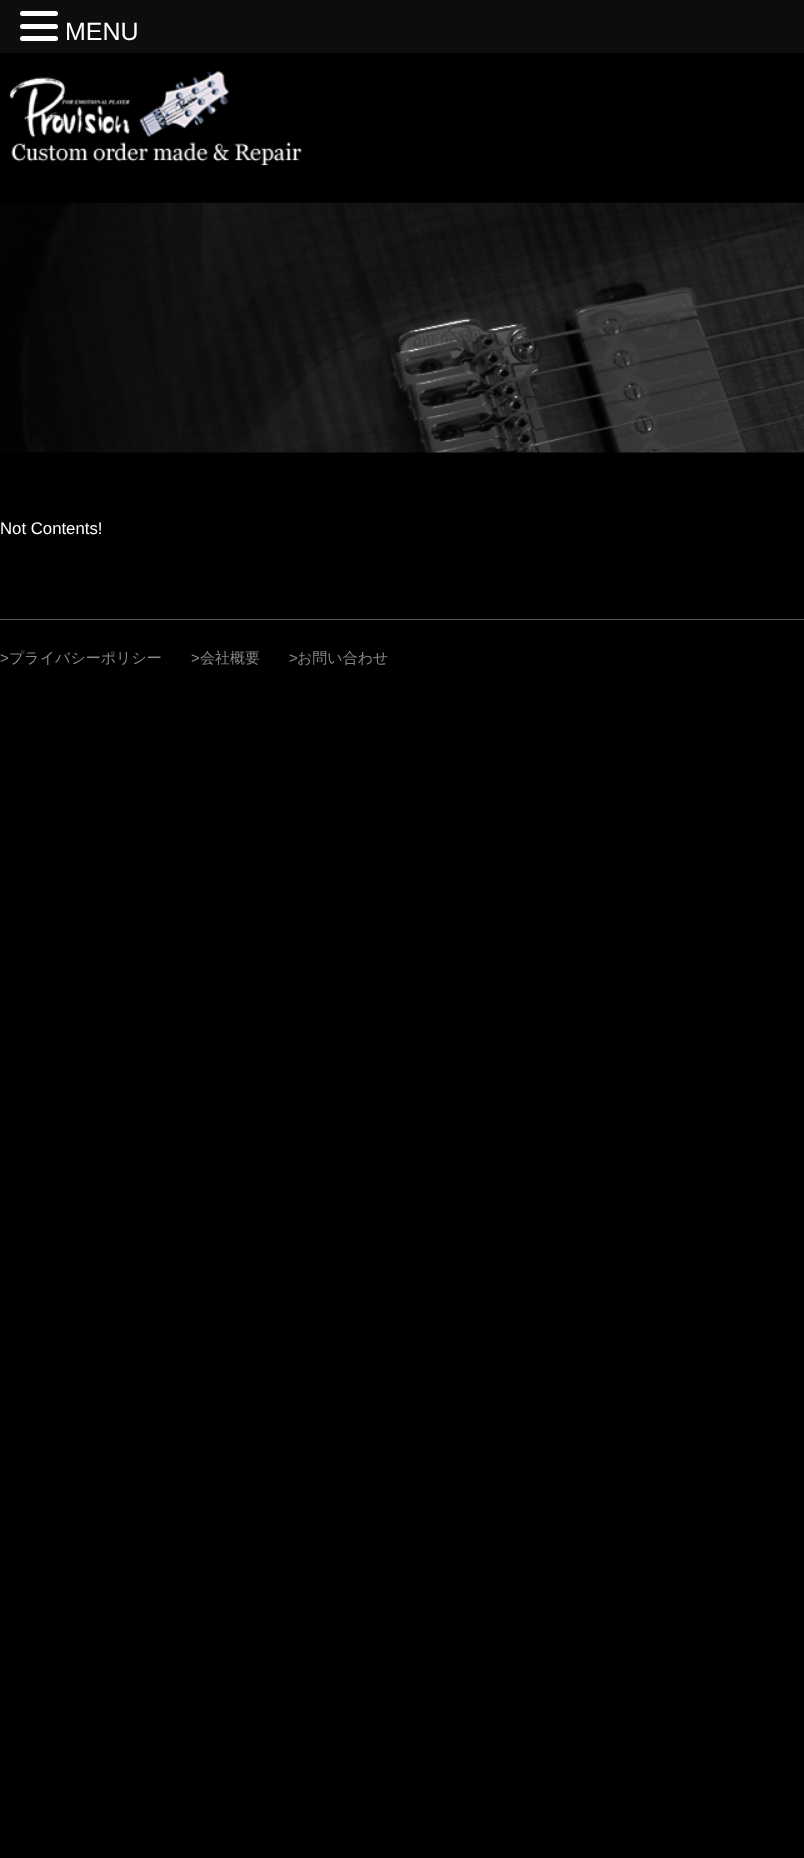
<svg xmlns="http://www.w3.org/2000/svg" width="804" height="1858">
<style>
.a{font:25px Liberation Sans;fill:#fff}
.b{font:15px Liberation Sans;fill:#888}
.c{font:500 15px WenQuanYi Zen Hei;fill:#888}
.d{font:16.75px Liberation Sans;fill:#fff}
</style>
<rect width="100%" height="100%" fill="#000"/>
<path fill="#555" d="M0 619h804v1H0z"/>
<path fill="#0d0d0d" d="M0 0h804v53H0z"/>
<rect fill="#fff" x="20" y="11" width="38" height="5" rx="2.5"/>
<rect fill="#fff" x="20" y="24" width="38" height="5" rx="2.5"/>
<rect fill="#fff" x="20" y="36" width="38" height="5" rx="2.5"/>
<image href="1.png" x="9" y="71" width="293" height="95"/>
<image href="2.png" x="0" y="202" width="804" height="251"/>
<text class="a" x="65" y="40">MENU</text>
<text class="b" x="0" y="663">&gt;</text>
<text class="c" x="9" y="663">プライバシーポリシー</text>
<text class="b" x="191" y="663">&gt;</text>
<text class="c" x="200" y="663">会社概要</text>
<text class="b" x="289" y="663">&gt;</text>
<text class="c" x="297" y="663">お問い合わせ</text>
<text class="d" x="0" y="534">Not Contents!</text>
</svg>
